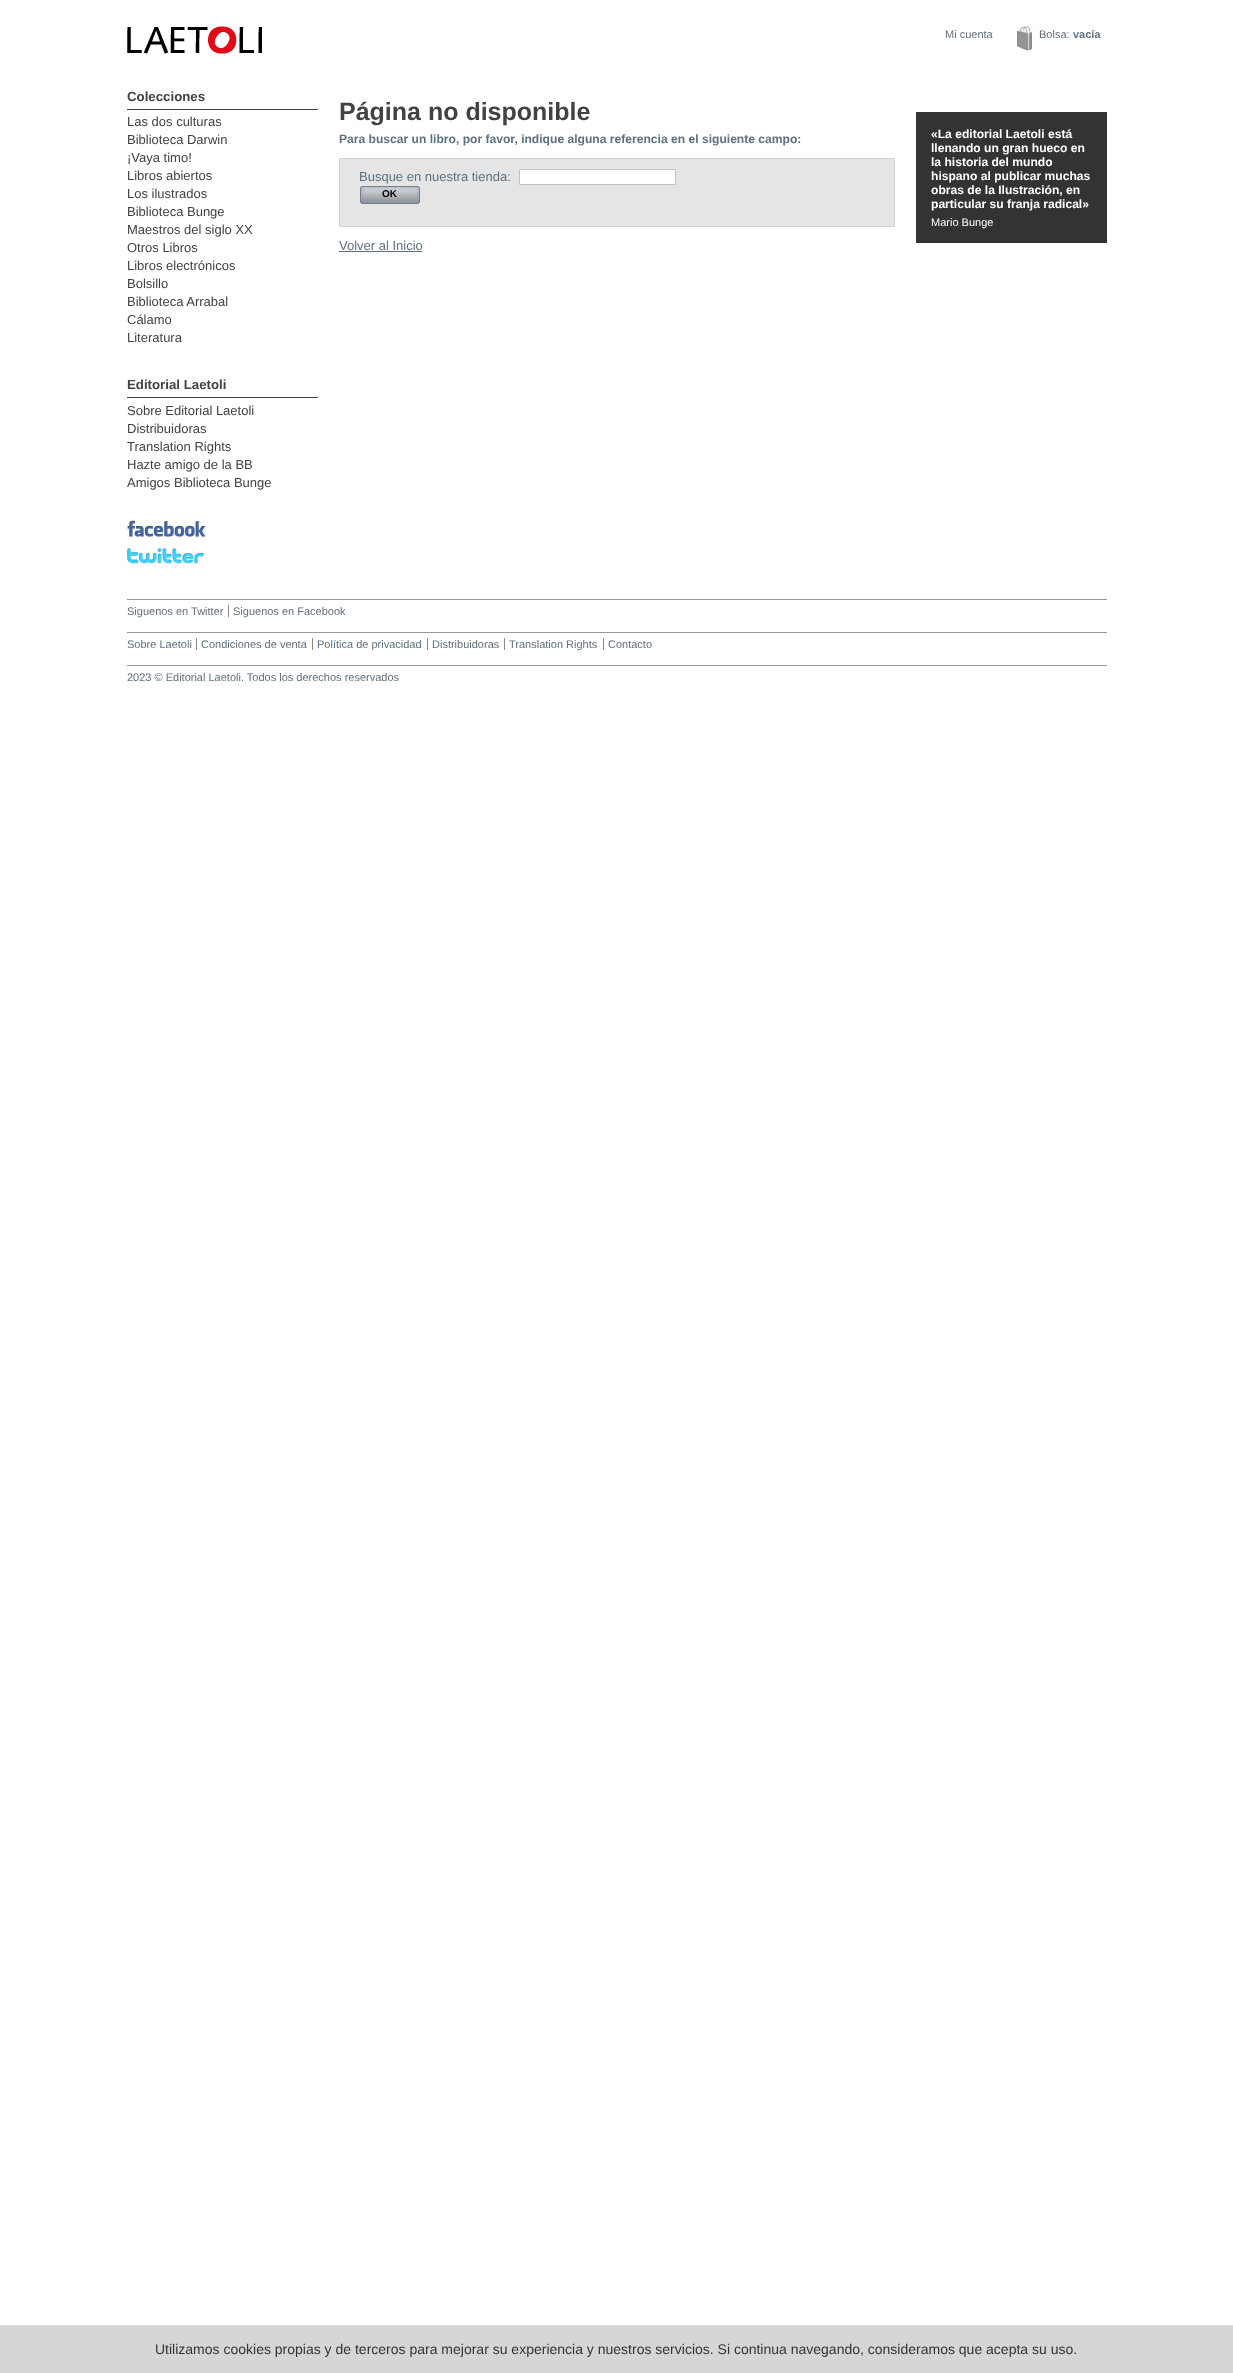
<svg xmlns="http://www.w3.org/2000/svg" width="1233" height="2373">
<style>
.a{font:11px Liberation Sans;fill:#5d717e}
.b{font:bold 11px Liberation Sans;fill:#5d717e}
.c{font:bold 13.25px Liberation Sans;fill:#424240}
.d{font:13px Liberation Sans;fill:#424240}
.e{font:bold 25px Liberation Sans;fill:#424240}
.f{font:bold 12.1px Liberation Sans;fill:#5d717e}
.g{font:13px Liberation Sans;fill:#5d717e}
.h{font:bold 10px Liberation Sans;fill:#000}
.i{font:bold 12.1px Liberation Sans;fill:#fff}
.j{font:11px Liberation Sans;fill:#fff}
.k{font:14px Liberation Sans;fill:#333}
</style>
<rect width="100%" height="100%" fill="#fff"/>
<image href="1.png" x="127" y="26" width="136" height="28"/>
<image href="2.png" x="1017" y="26" width="15" height="25"/>
<path fill="#424240" d="M127 109h191v1H127z"/>
<path fill="#424240" d="M127 397h191v1H127z"/>
<image href="3.png" x="127" y="520" width="79" height="17"/>
<image href="4.png" x="127" y="520" width="79" height="17"/>
<image href="5.png" x="127" y="548" width="78" height="16"/>
<image href="6.png" x="127" y="548" width="77" height="16"/>
<path fill="#e5e5e5" stroke="#d0d3d8" d="M339.5 158.5h555v68H339.5z"/>
<path fill="#fff" stroke="#bdc2c9" d="M519.5 169.5h156v15H519.5z"/>
<path fill="#efefef" d="M360 186h60v18H360z"/>
<image href="7.png" x="360" y="186" width="60" height="18"/>
<path fill="#5d717e" d="M339 251h83v1H339z"/>
<path fill="#333" d="M916 112h191v131H916z"/>
<path fill="#999" d="M127 599h980v1H127z"/>
<path fill="#888" d="M228 605h1v12H228z"/>
<path fill="#999" d="M127 632h980v1H127z"/>
<path fill="#888" d="M196 638h1v12H196z"/>
<path fill="#888" d="M312 638h1v12H312z"/>
<path fill="#888" d="M427 638h1v12H427z"/>
<path fill="#888" d="M504 638h1v12H504z"/>
<path fill="#888" d="M603 638h1v12H603z"/>
<path fill="#999" d="M127 665h980v1H127z"/>
<path fill="#d6d6d6" d="M0 2325h1233v48H0z"/>
<text class="a" x="945" y="38">Mi cuenta</text>
<text class="a" x="1039" y="38">Bolsa:</text>
<text class="b" x="1073" y="38">vacía</text>
<text class="c" x="127" y="101">Colecciones</text>
<text class="d" x="127" y="126">Las dos culturas</text>
<text class="d" x="127" y="144">Biblioteca Darwin</text>
<text class="d" x="127" y="162">¡Vaya timo!</text>
<text class="d" x="127" y="180">Libros abiertos</text>
<text class="d" x="127" y="198">Los ilustrados</text>
<text class="d" x="127" y="216">Biblioteca Bunge</text>
<text class="d" x="127" y="234">Maestros del siglo XX</text>
<text class="d" x="127" y="252">Otros Libros</text>
<text class="d" x="127" y="270">Libros electrónicos</text>
<text class="d" x="127" y="288">Bolsillo</text>
<text class="d" x="127" y="306">Biblioteca Arrabal</text>
<text class="d" x="127" y="324">Cálamo</text>
<text class="d" x="127" y="342">Literatura</text>
<text class="c" x="127" y="389">Editorial Laetoli</text>
<text class="d" x="127" y="415">Sobre Editorial Laetoli</text>
<text class="d" x="127" y="433">Distribuidoras</text>
<text class="d" x="127" y="451">Translation Rights</text>
<text class="d" x="127" y="469">Hazte amigo de la BB</text>
<text class="d" x="127" y="487">Amigos Biblioteca Bunge</text>
<text class="e" x="339" y="120">Página no disponible</text>
<text class="f" x="339" y="143">Para buscar un libro, por favor, indique alguna referencia en el siguiente campo:</text>
<text class="g" x="359" y="181">Busque en nuestra tienda:</text>
<text class="h" x="382" y="197">OK</text>
<text class="g" x="339" y="250">Volver al Inicio</text>
<text class="i" x="931" y="138">«La editorial Laetoli está</text>
<text class="i" x="931" y="152">llenando un gran hueco en</text>
<text class="i" x="931" y="166">la historia del mundo</text>
<text class="i" x="931" y="180">hispano al publicar muchas</text>
<text class="i" x="931" y="194">obras de la Ilustración, en</text>
<text class="i" x="931" y="208">particular su franja radical»</text>
<text class="j" x="931" y="226">Mario Bunge</text>
<text class="a" x="127" y="615">Siguenos en Twitter</text>
<text class="a" x="233" y="615">Siguenos en Facebook</text>
<text class="a" x="127" y="648">Sobre Laetoli</text>
<text class="a" x="201" y="648">Condiciones de venta</text>
<text class="a" x="317" y="648">Política de privacidad</text>
<text class="a" x="432" y="648">Distribuidoras</text>
<text class="a" x="509" y="648">Translation Rights</text>
<text class="a" x="608" y="648">Contacto</text>
<text class="a" x="127" y="681">2023 © Editorial Laetoli. Todos los derechos reservados</text>
<text class="k" x="155" y="2354">Utilizamos cookies propias y de terceros para mejorar su experiencia y nuestros servicios. Si continua navegando, consideramos que acepta su uso.</text>
</svg>
